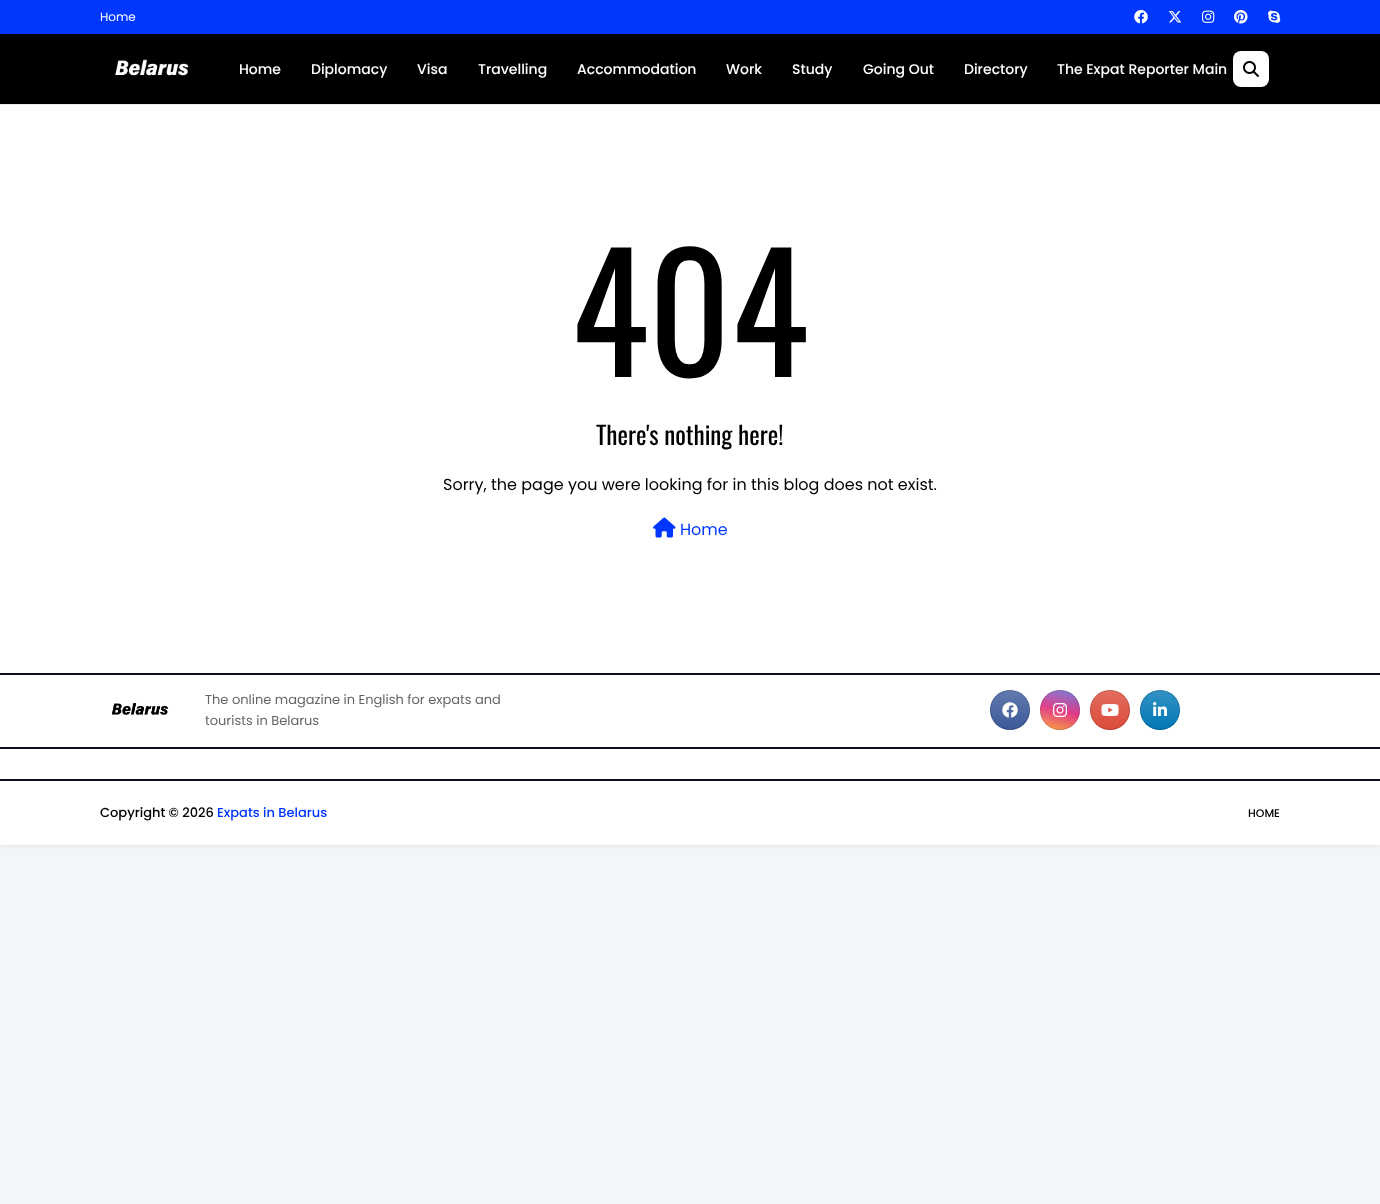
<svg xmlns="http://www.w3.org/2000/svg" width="1380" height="1204">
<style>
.a{font:12px Poppins;fill:#fff}
.b{font:500 14px Poppins;fill:#fff}
.c{font:160px Oswald;fill:#000}
.d{font:25px Oswald;fill:#000}
.e{font:16px Poppins;fill:#000}
.f{font:16px Poppins;fill:#0037ff}
.g{font:13px Poppins;fill:#656565}
.h{font:500 13px Poppins;fill:#000}
.i{font:500 13px Poppins;fill:#0037ff}
.j{font:500 11px Poppins;fill:#000}
</style>
<defs>
<linearGradient id="g1" gradientUnits="userSpaceOnUse" x1="1010" y1="690" x2="1010" y2="730"><stop offset="0" stop-color="#fff" stop-opacity="0.2"/><stop offset="1" stop-color="#fff" stop-opacity="0"/></linearGradient>
<linearGradient id="g2" gradientUnits="userSpaceOnUse" x1="1054" y1="734" x2="1066" y2="686"><stop offset="0" stop-color="#ffb13d"/><stop offset="0.5" stop-color="#dd277b"/><stop offset="1" stop-color="#4d5ed4"/></linearGradient>
<linearGradient id="g3" gradientUnits="userSpaceOnUse" x1="1060" y1="690" x2="1060" y2="730"><stop offset="0" stop-color="#fff" stop-opacity="0.2"/><stop offset="1" stop-color="#fff" stop-opacity="0"/></linearGradient>
<linearGradient id="g4" gradientUnits="userSpaceOnUse" x1="1110" y1="690" x2="1110" y2="730"><stop offset="0" stop-color="#fff" stop-opacity="0.2"/><stop offset="1" stop-color="#fff" stop-opacity="0"/></linearGradient>
<linearGradient id="g5" gradientUnits="userSpaceOnUse" x1="1160" y1="690" x2="1160" y2="730"><stop offset="0" stop-color="#fff" stop-opacity="0.2"/><stop offset="1" stop-color="#fff" stop-opacity="0"/></linearGradient>
</defs>
<rect width="100%" height="100%" fill="#f2f6f8"/>
<path fill="#0000001a" filter="blur(2.5px)" d="M0 0h1380v845H0z"/>
<path fill="#fff" d="M0 105h1380v740H0z"/>
<path fill="#0037ff" d="M0 0h1380v34H0z"/>
<image href="1.png" x="1134" y="10" width="14" height="14"/>
<image href="2.png" x="1168" y="11" width="14" height="12"/>
<image href="3.png" x="1202" y="10" width="13" height="13"/>
<image href="4.png" x="1234" y="10" width="14" height="14"/>
<image href="5.png" x="1268" y="10" width="13" height="13"/>
<path fill="#000" d="M0 34h1380v70H0z"/>
<path fill="#ececec" d="M0 104h1380v1H0z"/>
<image href="6.png" x="115" y="59" width="74" height="17"/>
<rect fill="#fff" x="1233" y="51" width="36" height="36" rx="8"/>
<image href="7.png" x="1243" y="61" width="16" height="16"/>
<image href="8.png" x="653" y="517" width="23" height="21"/>
<path fill="#0d0c22" d="M0 673h1380v2H0z"/>
<path fill="#0d0c22" d="M0 747h1380v2H0z"/>
<image href="9.png" x="112" y="703" width="57" height="12"/>
<circle fill="#3b5999" cx="1010" cy="710" r="20"/>
<image href="10.png" x="1002" y="702" width="16" height="16"/>
<circle fill="url(#g1)" cx="1010" cy="710" r="20"/>
<circle fill="none" stroke="#00000026" cx="1010" cy="710" r="19.5"/>
<circle fill="url(#g2)" cx="1060" cy="710" r="20"/>
<image href="11.png" x="1053" y="703" width="14" height="14"/>
<circle fill="url(#g3)" cx="1060" cy="710" r="20"/>
<circle fill="none" stroke="#00000026" cx="1060" cy="710" r="19.5"/>
<circle fill="#db4a39" cx="1110" cy="710" r="20"/>
<image href="12.png" x="1101" y="704" width="18" height="12"/>
<circle fill="url(#g4)" cx="1110" cy="710" r="20"/>
<circle fill="none" stroke="#00000026" cx="1110" cy="710" r="19.5"/>
<circle fill="#0077b5" cx="1160" cy="710" r="20"/>
<image href="13.png" x="1153" y="702" width="14" height="14"/>
<circle fill="url(#g5)" cx="1160" cy="710" r="20"/>
<circle fill="none" stroke="#00000026" cx="1160" cy="710" r="19.5"/>
<path fill="#0d0c22" d="M0 779h1380v2H0z"/>
<text class="a" x="100" y="21">Home</text>
<text class="b" x="239" y="74">Home</text>
<text class="b" x="311" y="74">Diplomacy</text>
<text class="b" x="417" y="74">Visa</text>
<text class="b" x="478" y="74">Travelling</text>
<text class="b" x="577" y="74">Accommodation</text>
<text class="b" x="726" y="74">Work</text>
<text class="b" x="792" y="74">Study</text>
<text class="b" x="863" y="74">Going Out</text>
<text class="b" x="964" y="74">Directory</text>
<text class="b" x="1057" y="74">The Expat Reporter Main</text>
<text class="c" x="571" y="377">404</text>
<text class="d" x="596" y="445">There's nothing here!</text>
<text class="e" x="443" y="490">Sorry, the page you were looking for in this blog does not exist.</text>
<text class="f" x="680" y="535">Home</text>
<text class="g" x="205" y="704">The online magazine in English for expats and</text>
<text class="g" x="205" y="725">tourists in Belarus</text>
<text class="h" x="100" y="817">Copyright © 2026</text>
<text class="i" x="217" y="817">Expats in Belarus</text>
<text class="j" x="1248" y="817">HOME</text>
</svg>
